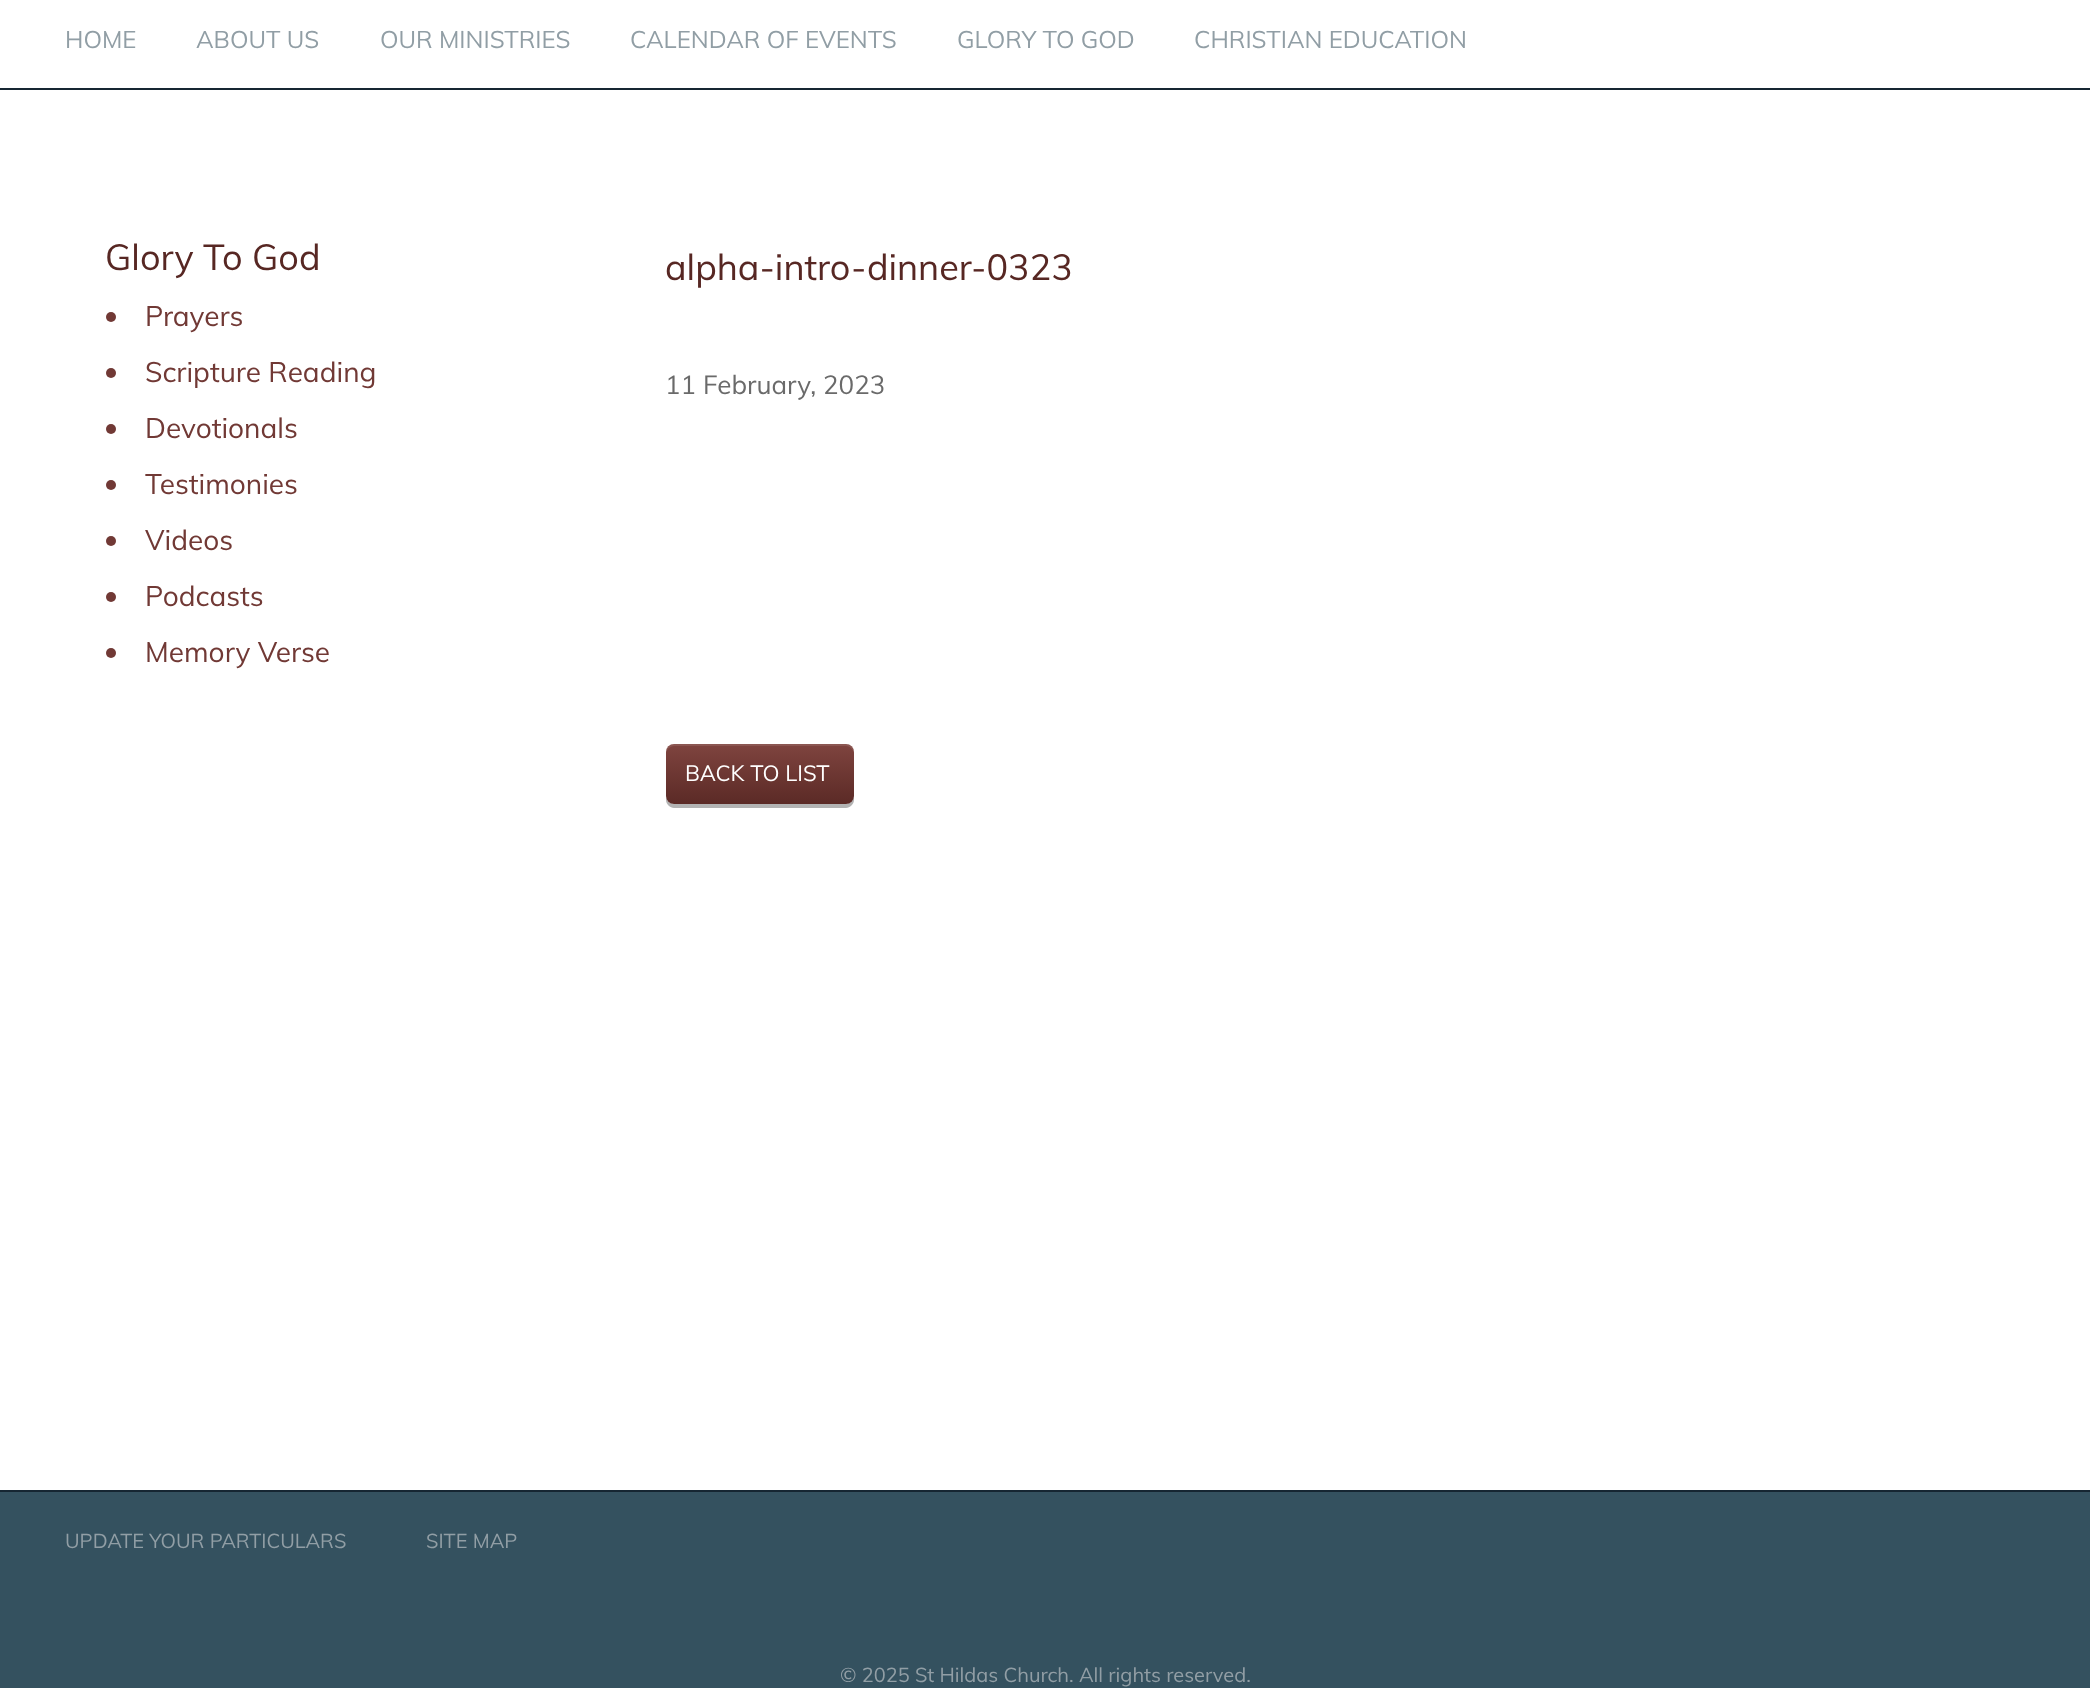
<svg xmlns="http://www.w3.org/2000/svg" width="2090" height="1688">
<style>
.a{font:24px Muli;fill:#919ea5}
.b{font:36px Muli;fill:#572723}
.c{font:28px Muli;fill:#713935}
.d{font:26px Muli;fill:#6a6a6a}
.e{font:22px Muli;fill:#fff}
.f{font:20px Muli;fill:#919ea5}
</style>
<defs>
<linearGradient id="g1" gradientUnits="userSpaceOnUse" x1="666" y1="744" x2="666" y2="804"><stop offset="0" stop-color="#7f443f"/><stop offset="1" stop-color="#5b2a26"/></linearGradient>
</defs>
<rect width="100%" height="100%" fill="#fff"/>
<path fill="#162632" d="M0 88h2090v2H0z"/>
<circle fill="#713935" cx="111" cy="317" r="5"/>
<circle fill="#713935" cx="111" cy="373" r="5"/>
<circle fill="#713935" cx="111" cy="429" r="5"/>
<circle fill="#713935" cx="111" cy="485" r="5"/>
<circle fill="#713935" cx="111" cy="541" r="5"/>
<circle fill="#713935" cx="111" cy="597" r="5"/>
<circle fill="#713935" cx="111" cy="653" r="5"/>
<path fill="#b3b3b3" d="M666 796v4c0 4 4 8 8 8h172c4 0 8-4 8-8v-4c0 4-4 8-8 8h-172c-4 0-8-4-8-8z"/>
<rect fill="url(#g1)" x="666" y="744" width="188" height="60" rx="8"/>
<path fill="#ffffff1a" d="M674 746h172c4 0 8 4 8 8v-2c0-4-4-8-8-8h-172c-4 0-8 4-8 8v2c0-4 4-8 8-8z"/>
<path fill="#34515f" d="M0 1492h2090v196H0z"/>
<path fill="#162632" d="M0 1490h2090v2H0z"/>
<text class="a" x="65" y="48">HOME</text>
<text class="a" x="196" y="48">ABOUT US</text>
<text class="a" x="380" y="48">OUR MINISTRIES</text>
<text class="a" x="630" y="48">CALENDAR OF EVENTS</text>
<text class="a" x="957" y="48">GLORY TO GOD</text>
<text class="a" x="1194" y="48">CHRISTIAN EDUCATION</text>
<text class="b" x="105" y="270">Glory To God</text>
<text class="c" x="145" y="326">Prayers</text>
<text class="c" x="145" y="382">Scripture Reading</text>
<text class="c" x="145" y="438">Devotionals</text>
<text class="c" x="145" y="494">Testimonies</text>
<text class="c" x="145" y="550">Videos</text>
<text class="c" x="145" y="606">Podcasts</text>
<text class="c" x="145" y="662">Memory Verse</text>
<text class="b" x="665" y="280">alpha-intro-dinner-0323</text>
<text class="d" x="665" y="394">11 February, 2023</text>
<text class="e" x="685" y="781">BACK TO LIST</text>
<text class="f" x="65" y="1548">UPDATE YOUR PARTICULARS</text>
<text class="f" x="426" y="1548">SITE MAP</text>
<text class="f" x="840" y="1682">© 2025 St Hildas Church. All rights reserved.</text>
</svg>
